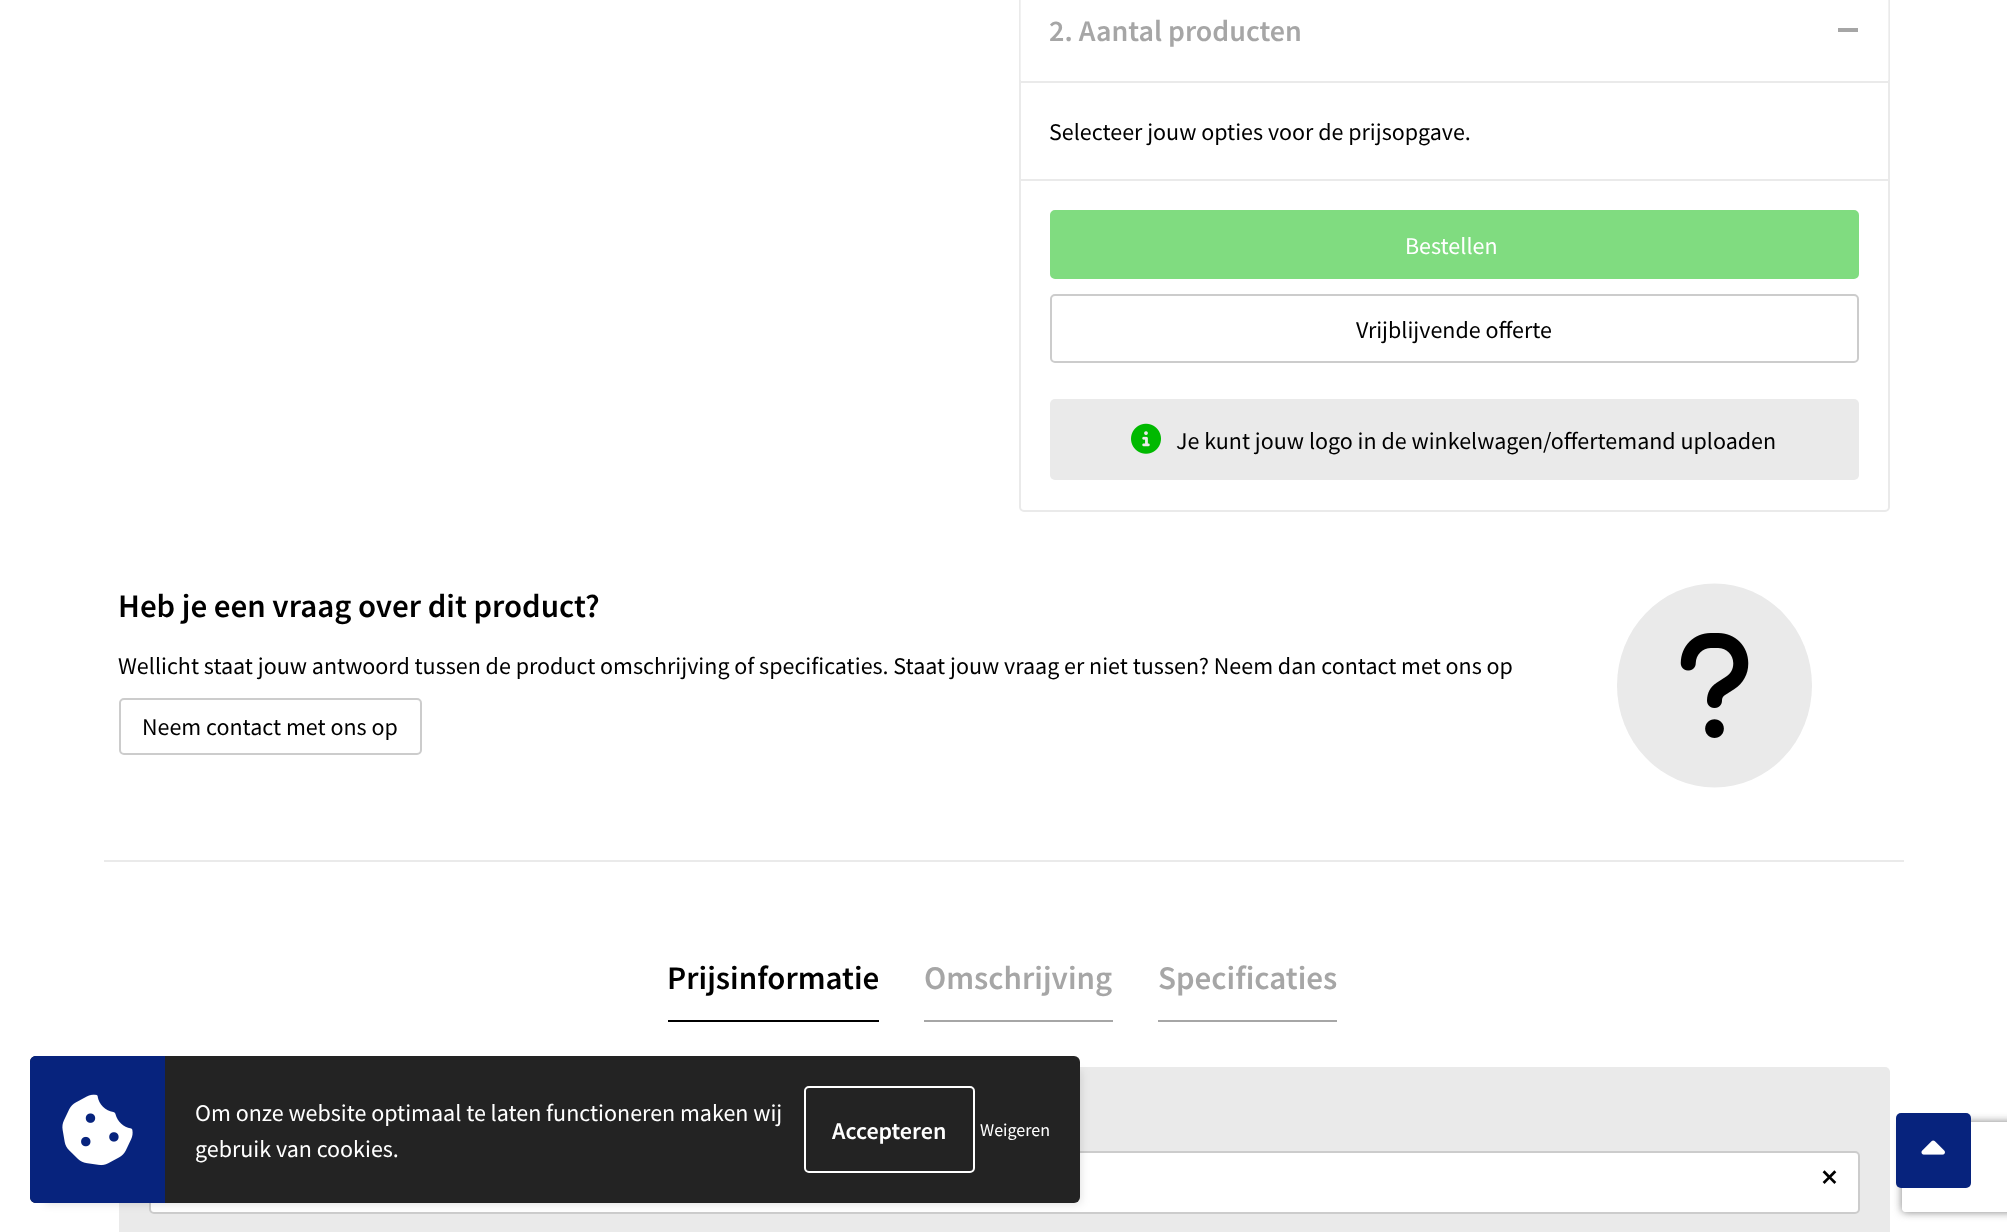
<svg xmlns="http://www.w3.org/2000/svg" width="2007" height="1232">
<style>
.a{font:600 30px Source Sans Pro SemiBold;fill:#a6a6a6}
.b{font:24px Source Sans Pro;fill:#000}
.c{font:24px Source Sans Pro;fill:#fff}
.d{font:600 33px Source Sans Pro SemiBold;fill:#000}
.e{font:600 33px Source Sans Pro SemiBold;fill:#a6a6a6}
.f{font:600 24px Source Sans Pro SemiBold;fill:#fff}
.g{font:18px Source Sans Pro;fill:#fff}
</style>
<defs>
<clipPath id="clip1"><path d="M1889 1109h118v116h-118zm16 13h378c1.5 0 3 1.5 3 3v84c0 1.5-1.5 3-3 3h-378c-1.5 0-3-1.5-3-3v-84c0-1.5 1.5-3 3-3z" clip-rule="evenodd"/></clipPath>
</defs>
<rect width="100%" height="100%" fill="#fff"/>
<rect fill="none" stroke="#eaeaea" stroke-width="2" x="1020" y="-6" width="869" height="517" rx="4"/>
<path fill="#ffffff59" d="M1020 0h869v80H1020z"/>
<path fill="#a6a6a6" d="M1838 28h20v4H1838z"/>
<path fill="#eaeaea" d="M1020 81h869v2H1020z"/>
<path fill="#eaeaea" d="M1020 179h869v2H1020z"/>
<rect fill="#80dc80" stroke="#80dc80" stroke-width="2" x="1051" y="211" width="807" height="67" rx="4"/>
<rect fill="none" stroke="#ccc" stroke-width="2" x="1051" y="295" width="807" height="67" rx="4"/>
<rect fill="#eaeaea" x="1050" y="399" width="809" height="81" rx="5"/>
<image href="1.png" x="1131" y="423" width="30" height="31"/>
<rect fill="none" stroke="#ccc" stroke-width="2" x="120" y="699" width="301" height="55" rx="4"/>
<ellipse fill="#eaeaea" cx="1714.5" cy="685.5" rx="97.5" ry="102"/>
<image href="2.png" x="1680" y="633" width="69" height="105"/>
<path fill="#eaeaea" d="M104 860h1800v2H104z"/>
<path fill="#000" d="M668 1020h211v2H668z"/>
<path fill="#a6a6a6" d="M924 1020h189v2H924z"/>
<path fill="#a6a6a6" d="M1158 1020h179v2H1158z"/>
<rect fill="#eaeaea" x="119" y="1067" width="1771" height="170" rx="5"/>
<rect fill="#fff" stroke="#ccc" stroke-width="2" x="150" y="1152" width="1709" height="61" rx="4"/>
<g clip-path="url(#clip1)">
<rect fill="#808080" filter="blur(4px)" x="1902" y="1122" width="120" height="90" rx="3"/>
</g>
<rect fill="#07237d" x="1896" y="1113" width="75" height="75" rx="5"/>
<image href="3.png" x="1921" y="1140" width="24" height="15"/>
<path fill="#00000026" filter="blur(5px)" d="M45 1071h1035v132H45z"/>
<rect fill="#232323" x="30" y="1056" width="1050" height="147" rx="6"/>
<path fill="#07237d" d="M36 1056h129v147h-129c-3.5 0-6-2.5-6-6v-135c0-3.5 2.5-6 6-6z"/>
<image href="4.png" x="62" y="1094" width="71" height="72"/>
<rect fill="none" stroke="#fff" stroke-width="2" x="805" y="1087" width="169" height="85" rx="4"/>
<text class="a" x="1049" y="41">2. Aantal producten</text>
<text class="b" x="1049" y="140">Selecteer jouw opties voor de prijsopgave.</text>
<text class="c" x="1405" y="254">Bestellen</text>
<text class="b" x="1356" y="338">Vrijblijvende offerte</text>
<text class="b" x="1176" y="449">Je kunt jouw logo in de winkelwagen/offertemand uploaden</text>
<text class="d" x="118" y="617">Heb je een vraag over dit product?</text>
<text class="b" x="118" y="674">Wellicht staat jouw antwoord tussen de product omschrijving of specificaties. Staat jouw vraag er niet tussen? Neem dan contact met ons op</text>
<text class="b" x="142" y="735">Neem contact met ons op</text>
<text class="d" x="667" y="989">Prijsinformatie</text>
<text class="e" x="924" y="989">Omschrijving</text>
<text class="e" x="1158" y="989">Specificaties</text>
<text class="d" x="1821" y="1188">×</text>
<text class="c" x="195" y="1121">Om onze website optimaal te laten functioneren maken wij</text>
<text class="f" x="832" y="1139">Accepteren</text>
<text class="g" x="980" y="1136">Weigeren</text>
<text class="c" x="195" y="1157">gebruik van cookies.</text>
</svg>
